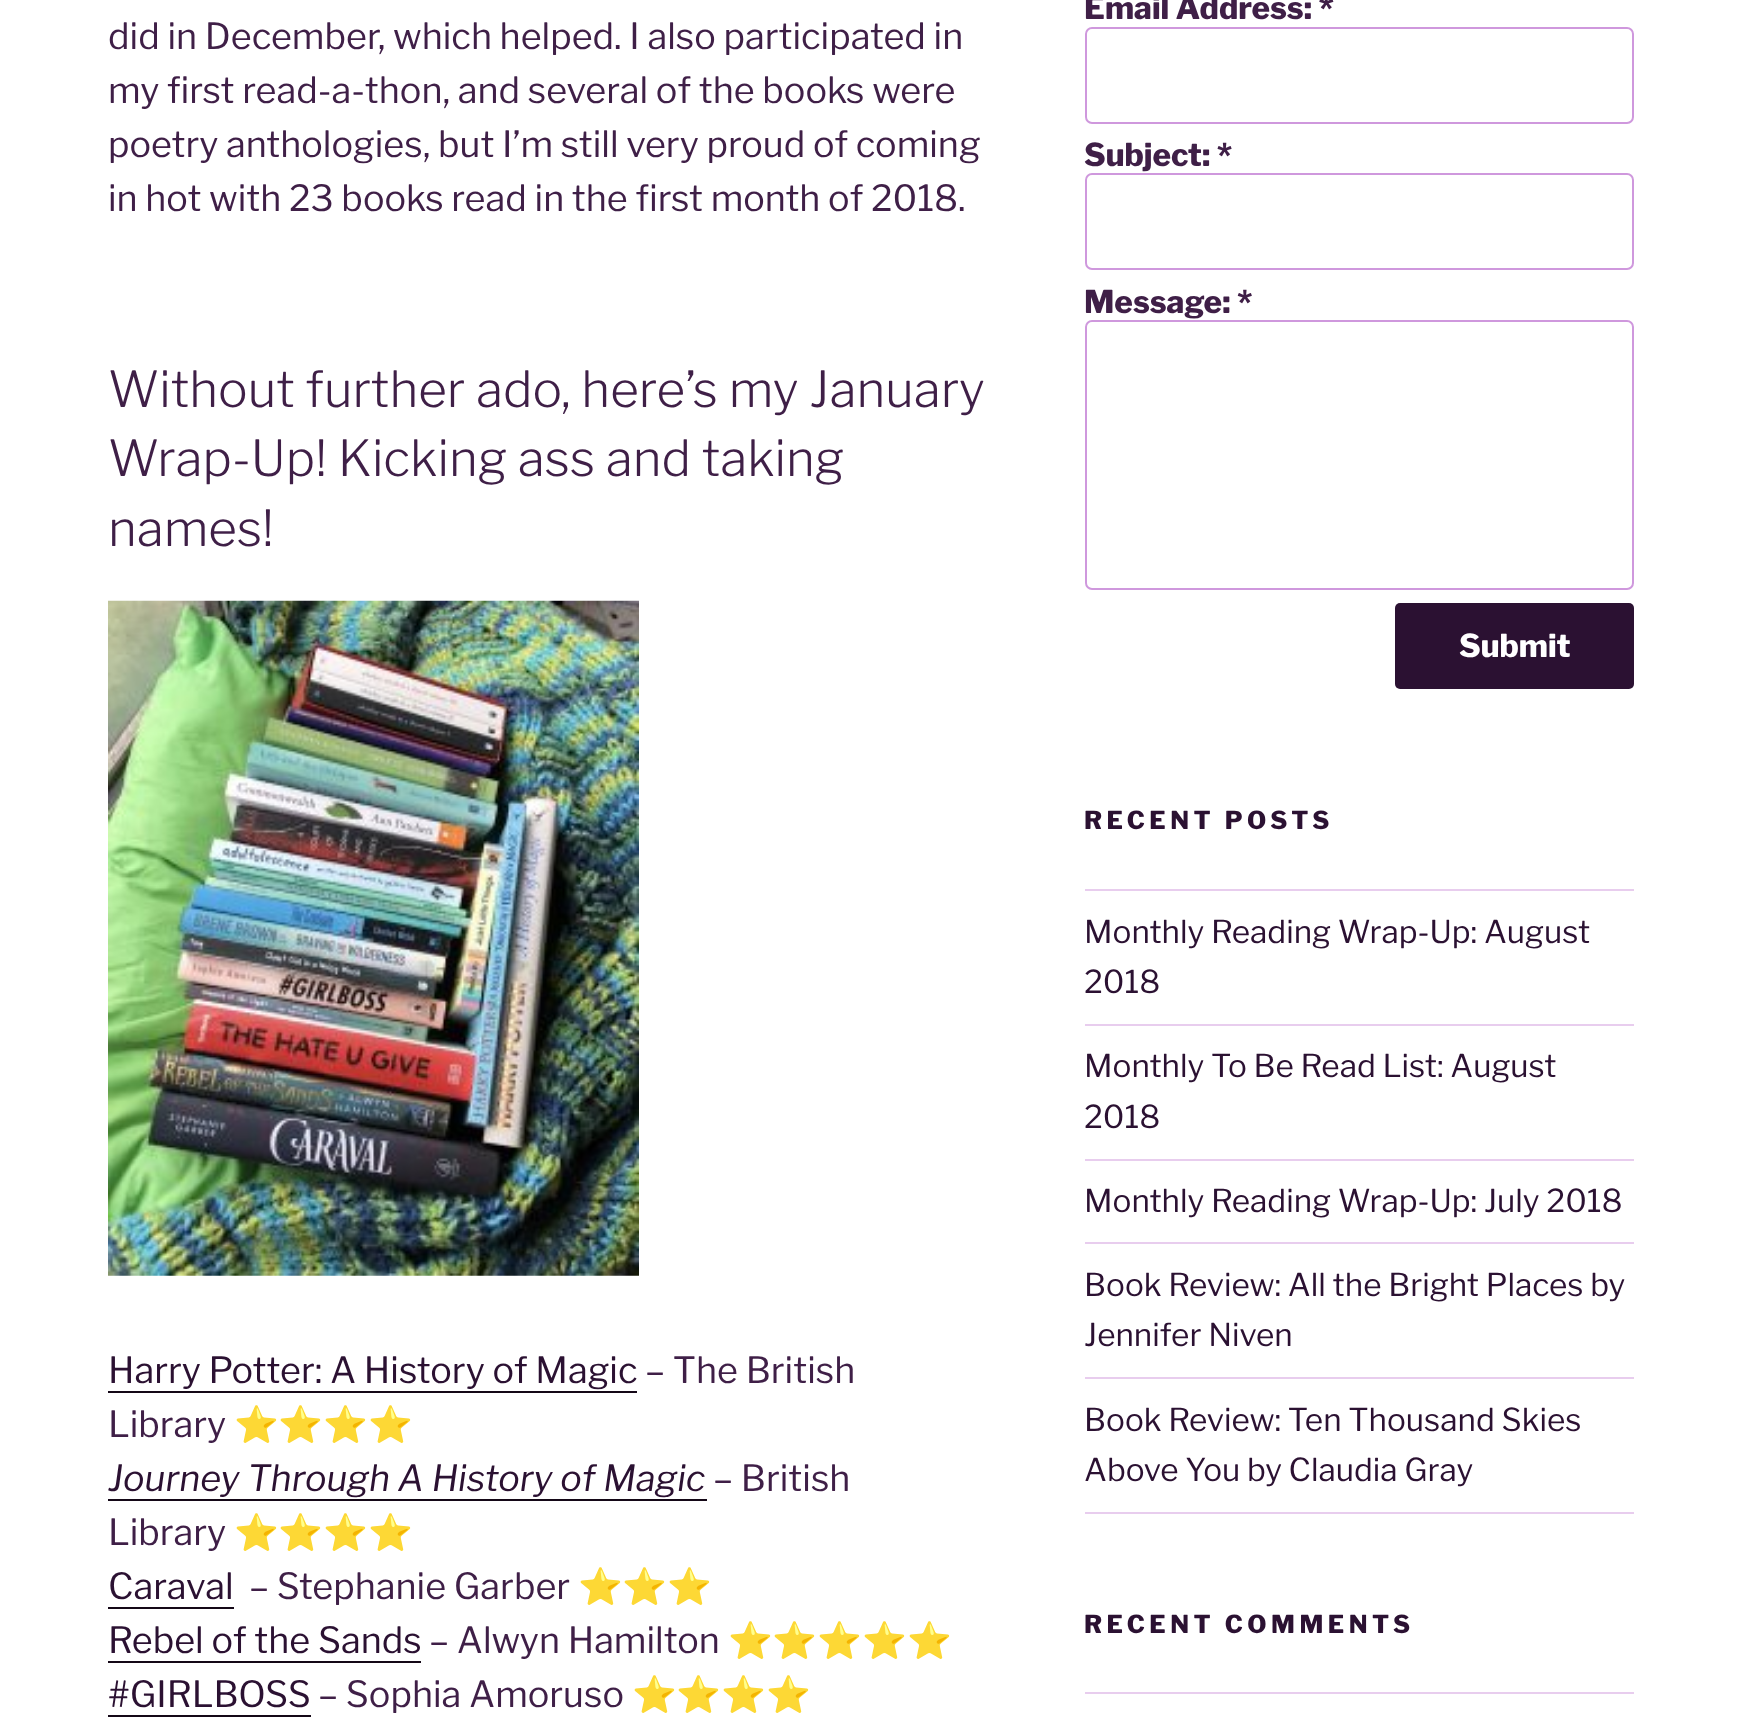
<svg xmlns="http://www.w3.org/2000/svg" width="1741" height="1718">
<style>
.a{font:36px Libre Franklin;fill:#3f1f47}
.b{font:300 49.5px Libre Franklin;fill:#3f1f47}
.c{font:36px Libre Franklin;fill:#2b1132}
.d{font:36px Noto Color Emoji;fill:#3f1f47}
.e{font:italic 36px Libre Franklin;fill:#2b1132}
.f{font:800 31.5px Libre Franklin;fill:#3f1f47}
.g{font:800 31.5px Libre Franklin;fill:#fff}
.h{font:800 24.75px Libre Franklin;letter-spacing:4.5px;fill:#2b1132}
.i{font:31.5px Libre Franklin;fill:#2b1132}
</style>
<rect width="100%" height="100%" fill="#fff"/>
<image href="1.png" x="108" y="600" width="531" height="676"/>
<path fill="#140817" d="M108 1391h529v2H108z"/>
<path fill="#140817" d="M108 1499h599v2H108z"/>
<path fill="#140817" d="M108 1607h126v2H108z"/>
<path fill="#140817" d="M108 1661h313v2H108z"/>
<path fill="#140817" d="M108 1715h203v2H108z"/>
<rect fill="none" stroke="#cf98dd" stroke-width="2" x="1086" y="28" width="547" height="95" rx="6"/>
<rect fill="none" stroke="#cf98dd" stroke-width="2" x="1086" y="174" width="547" height="95" rx="6"/>
<rect fill="none" stroke="#cf98dd" stroke-width="2" x="1086" y="321" width="547" height="268" rx="6"/>
<rect fill="#2b1132" x="1395" y="603" width="239" height="86" rx="5"/>
<path fill="#e8cdee" d="M1085 889h549v2H1085z"/>
<path fill="#e8cdee" d="M1085 1024h549v2H1085z"/>
<path fill="#e8cdee" d="M1085 1159h549v2H1085z"/>
<path fill="#e8cdee" d="M1085 1242h549v2H1085z"/>
<path fill="#e8cdee" d="M1085 1377h549v2H1085z"/>
<path fill="#e8cdee" d="M1085 1512h549v2H1085z"/>
<path fill="#e8cdee" d="M1085 1692h549v2H1085z"/>
<text class="a" x="108" y="49">did in December, which helped. I also participated in</text>
<text class="a" x="108" y="103">my first read-a-thon, and several of the books were</text>
<text class="a" x="108" y="157">poetry anthologies, but I’m still very proud of coming</text>
<text class="a" x="108" y="211">in hot with 23 books read in the first month of 2018.</text>
<text class="b" x="108" y="407">Without further ado, here’s my January</text>
<text class="b" x="108" y="476">Wrap-Up! Kicking ass and taking</text>
<text class="b" x="108" y="546">names!</text>
<text class="c" x="108" y="1383">Harry Potter: A History of Magic</text>
<text class="a" x="645" y="1383">– The British</text>
<text class="a" x="108" y="1437">Library</text>
<text class="d" x="234" y="1437">⭐⭐⭐⭐</text>
<text class="e" x="108" y="1491">Journey Through A History of Magic</text>
<text class="a" x="713" y="1491">– British</text>
<text class="a" x="108" y="1545">Library</text>
<text class="d" x="234" y="1545">⭐⭐⭐⭐</text>
<text class="c" x="108" y="1599">Caraval</text>
<text class="a" x="249" y="1599">– Stephanie Garber</text>
<text class="d" x="578" y="1599">⭐⭐⭐</text>
<text class="c" x="108" y="1653">Rebel of the Sands</text>
<text class="a" x="429" y="1653">– Alwyn Hamilton</text>
<text class="d" x="728" y="1653">⭐⭐⭐⭐⭐</text>
<text class="c" x="108" y="1707">#GIRLBOSS</text>
<text class="a" x="318" y="1707">– Sophia Amoruso</text>
<text class="d" x="632" y="1707">⭐⭐⭐⭐</text>
<text class="f" x="1084" y="19">Email Address: *</text>
<text class="f" x="1084" y="166">Subject: *</text>
<text class="f" x="1084" y="313">Message: *</text>
<text class="g" x="1459" y="657">Submit</text>
<text class="h" x="1084" y="829">RECENT POSTS</text>
<text class="i" x="1084" y="943">Monthly Reading Wrap-Up: August</text>
<text class="i" x="1084" y="993">2018</text>
<text class="i" x="1084" y="1077">Monthly To Be Read List: August</text>
<text class="i" x="1084" y="1128">2018</text>
<text class="i" x="1084" y="1212">Monthly Reading Wrap-Up: July 2018</text>
<text class="i" x="1084" y="1296">Book Review: All the Bright Places by</text>
<text class="i" x="1084" y="1346">Jennifer Niven</text>
<text class="i" x="1084" y="1431">Book Review: Ten Thousand Skies</text>
<text class="i" x="1084" y="1481">Above You by Claudia Gray</text>
<text class="h" x="1084" y="1633">RECENT COMMENTS</text>
</svg>
